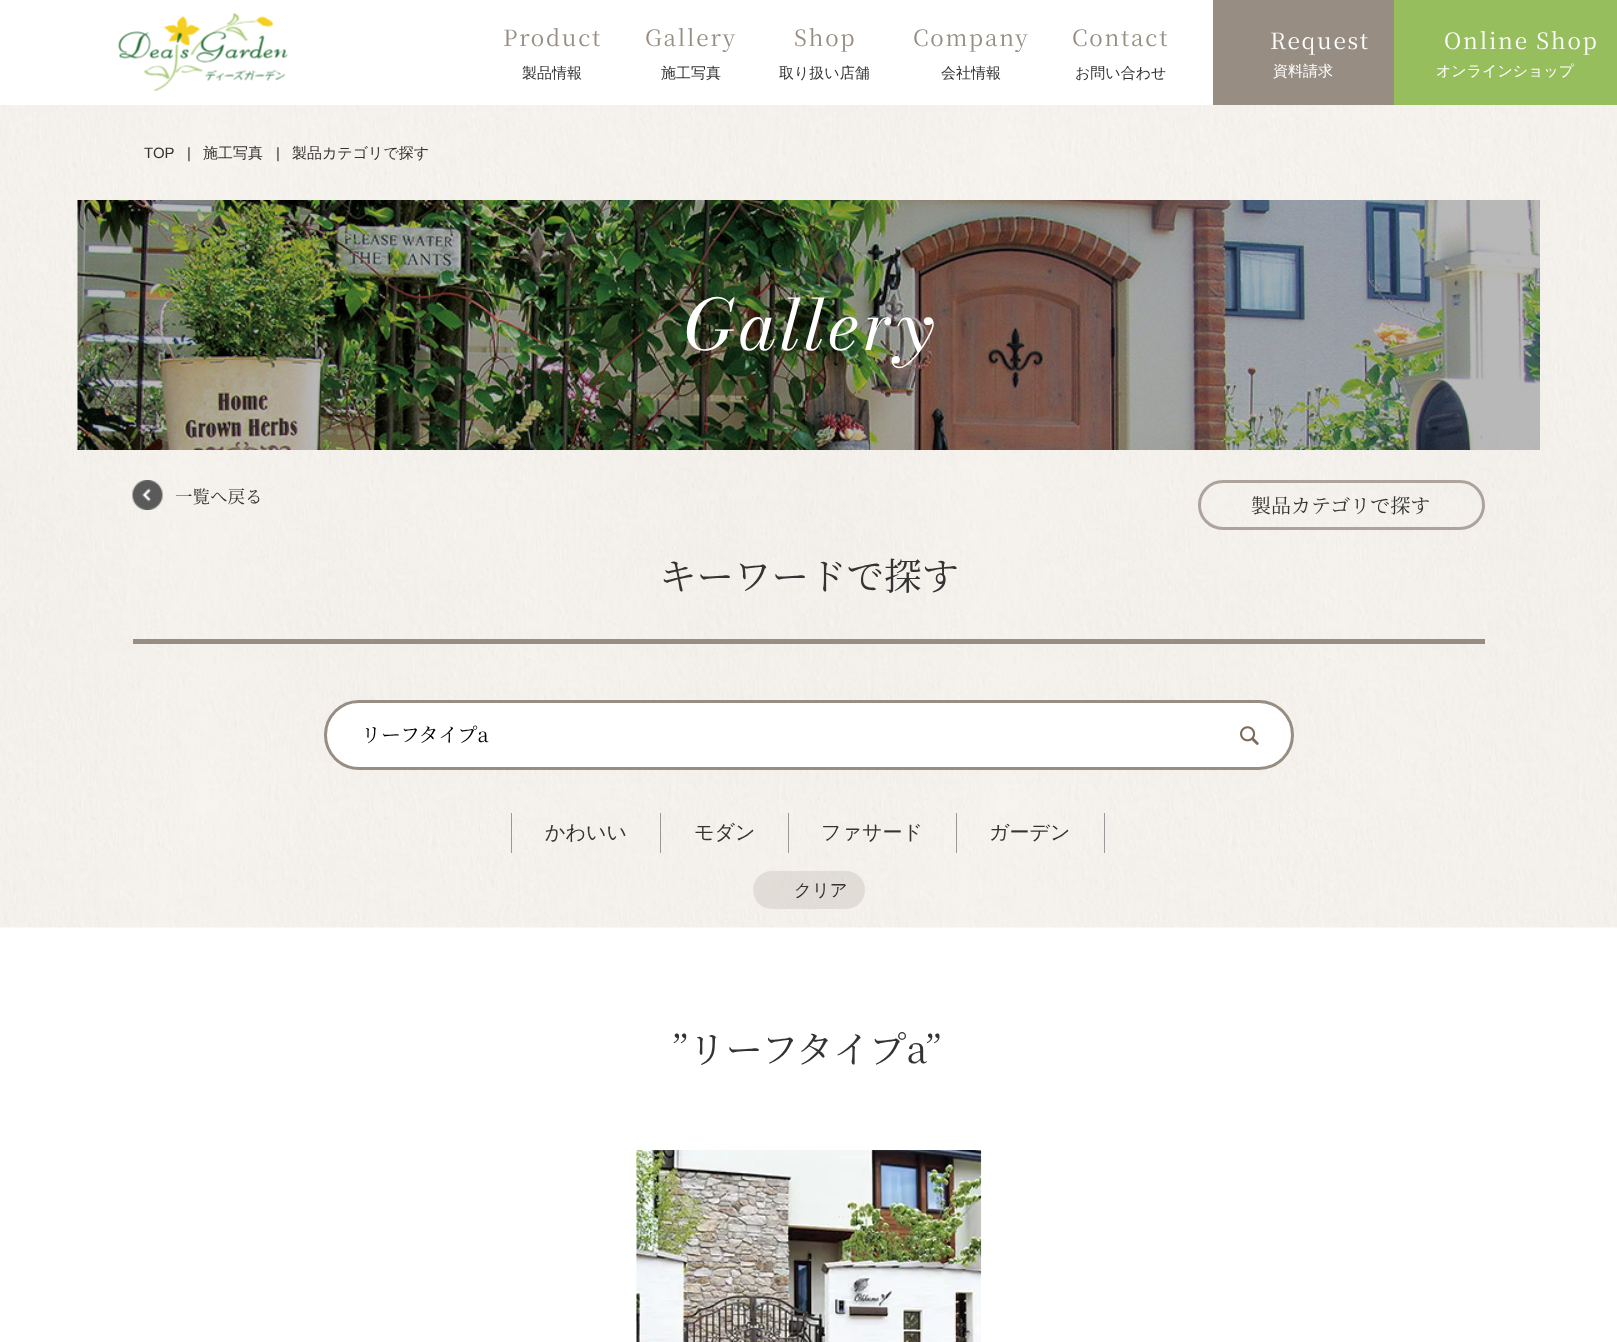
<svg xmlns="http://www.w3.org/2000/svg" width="1617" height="1342">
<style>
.a{font:22.5px Noto Serif JP;letter-spacing:1.75px;fill:#978d83}
.b{font:500 15px WenQuanYi Zen Hei;fill:#333}
.c{font:22.5px Noto Serif JP;letter-spacing:1.75px;fill:#fff}
.d{font:500 15px WenQuanYi Zen Hei;fill:#fff}
.e{font:15px Liberation Sans;fill:#333}
.f{font:italic 70px Bodoni Moda;letter-spacing:3.5px;fill:#fff}
.g{font:17.5px Noto Serif JP;fill:#333}
.h{font:20px Noto Serif JP;fill:#333}
.i{font:37.5px Noto Serif JP;fill:#333}
.j{font:20px Noto Serif JP;fill:#000}
.k{font:500 20px WenQuanYi Zen Hei;fill:#333}
.l{font:500 17.5px WenQuanYi Zen Hei;fill:#333}
</style>
<rect width="100%" height="100%" fill="#fff"/>
<image href="1.png" x="118" y="13" width="170" height="79"/>
<path fill="#978d83" d="M1213 0h181v105H1213z"/>
<path fill="#97be5c" d="M1394 0h223v105H1394z"/>
<image href="2.png" x="0" y="105" width="1617" height="95"/>
<image href="3.png" x="0" y="200" width="1617" height="728"/>
<image href="4.png" x="77" y="200" width="1463" height="250"/>
<image href="5.png" x="132" y="480" width="31" height="30"/>
<rect fill="none" stroke="#aca49c" stroke-width="3" x="1199.5" y="481.5" width="284" height="47" rx="23.5"/>
<path fill="#978d83" d="M133 639h1352v5H133z"/>
<rect fill="#fff" stroke="#978d83" stroke-width="3" x="325.5" y="701.5" width="967" height="67" rx="33.5"/>
<image href="6.png" x="1240" y="726" width="19" height="19"/>
<path fill="#999" d="M660 813h1v40H660z"/>
<path fill="#999" d="M511 813h1v40H511z"/>
<path fill="#999" d="M788 813h1v40H788z"/>
<path fill="#999" d="M956 813h1v40H956z"/>
<path fill="#999" d="M1104 813h1v40H1104z"/>
<rect fill="#978d8333" x="753" y="871" width="112" height="38" rx="19"/>
<image href="7.png" x="636" y="1150" width="346" height="192"/>
<text class="a" x="503" y="46">Product</text>
<text class="b" x="522" y="78">製品情報</text>
<text class="a" x="645" y="46">Gallery</text>
<text class="b" x="661" y="78">施工写真</text>
<text class="a" x="794" y="46">Shop</text>
<text class="b" x="779" y="78">取り扱い店舗</text>
<text class="a" x="913" y="46">Company</text>
<text class="b" x="941" y="78">会社情報</text>
<text class="a" x="1072" y="46">Contact</text>
<text class="b" x="1075" y="78">お問い合わせ</text>
<text class="c" x="1270" y="49">Request</text>
<text class="d" x="1273" y="76">資料請求</text>
<text class="c" x="1444" y="49">Online Shop</text>
<text class="d" x="1436" y="76">オンラインショップ</text>
<text class="e" x="144" y="158">TOP</text>
<text class="e" x="187" y="158">|</text>
<text class="b" x="203" y="158">施工写真</text>
<text class="e" x="276" y="158">|</text>
<text class="b" x="292" y="158">製品カテゴリで探す</text>
<text class="f" x="683" y="350">Gallery</text>
<text class="g" x="175" y="503">一覧へ戻る</text>
<text class="h" x="1251" y="513">製品カテゴリで探す</text>
<text class="i" x="659" y="590">キーワードで探す</text>
<text class="j" x="361" y="742">リーフタイプa</text>
<text class="k" x="545" y="839">かわいい</text>
<text class="k" x="694" y="839">モダン</text>
<text class="k" x="821" y="839">ファサード</text>
<text class="k" x="989" y="839">ガーデン</text>
<text class="l" x="794" y="896">クリア</text>
<text class="i" x="672" y="1063">”リーフタイプa”</text>
</svg>
